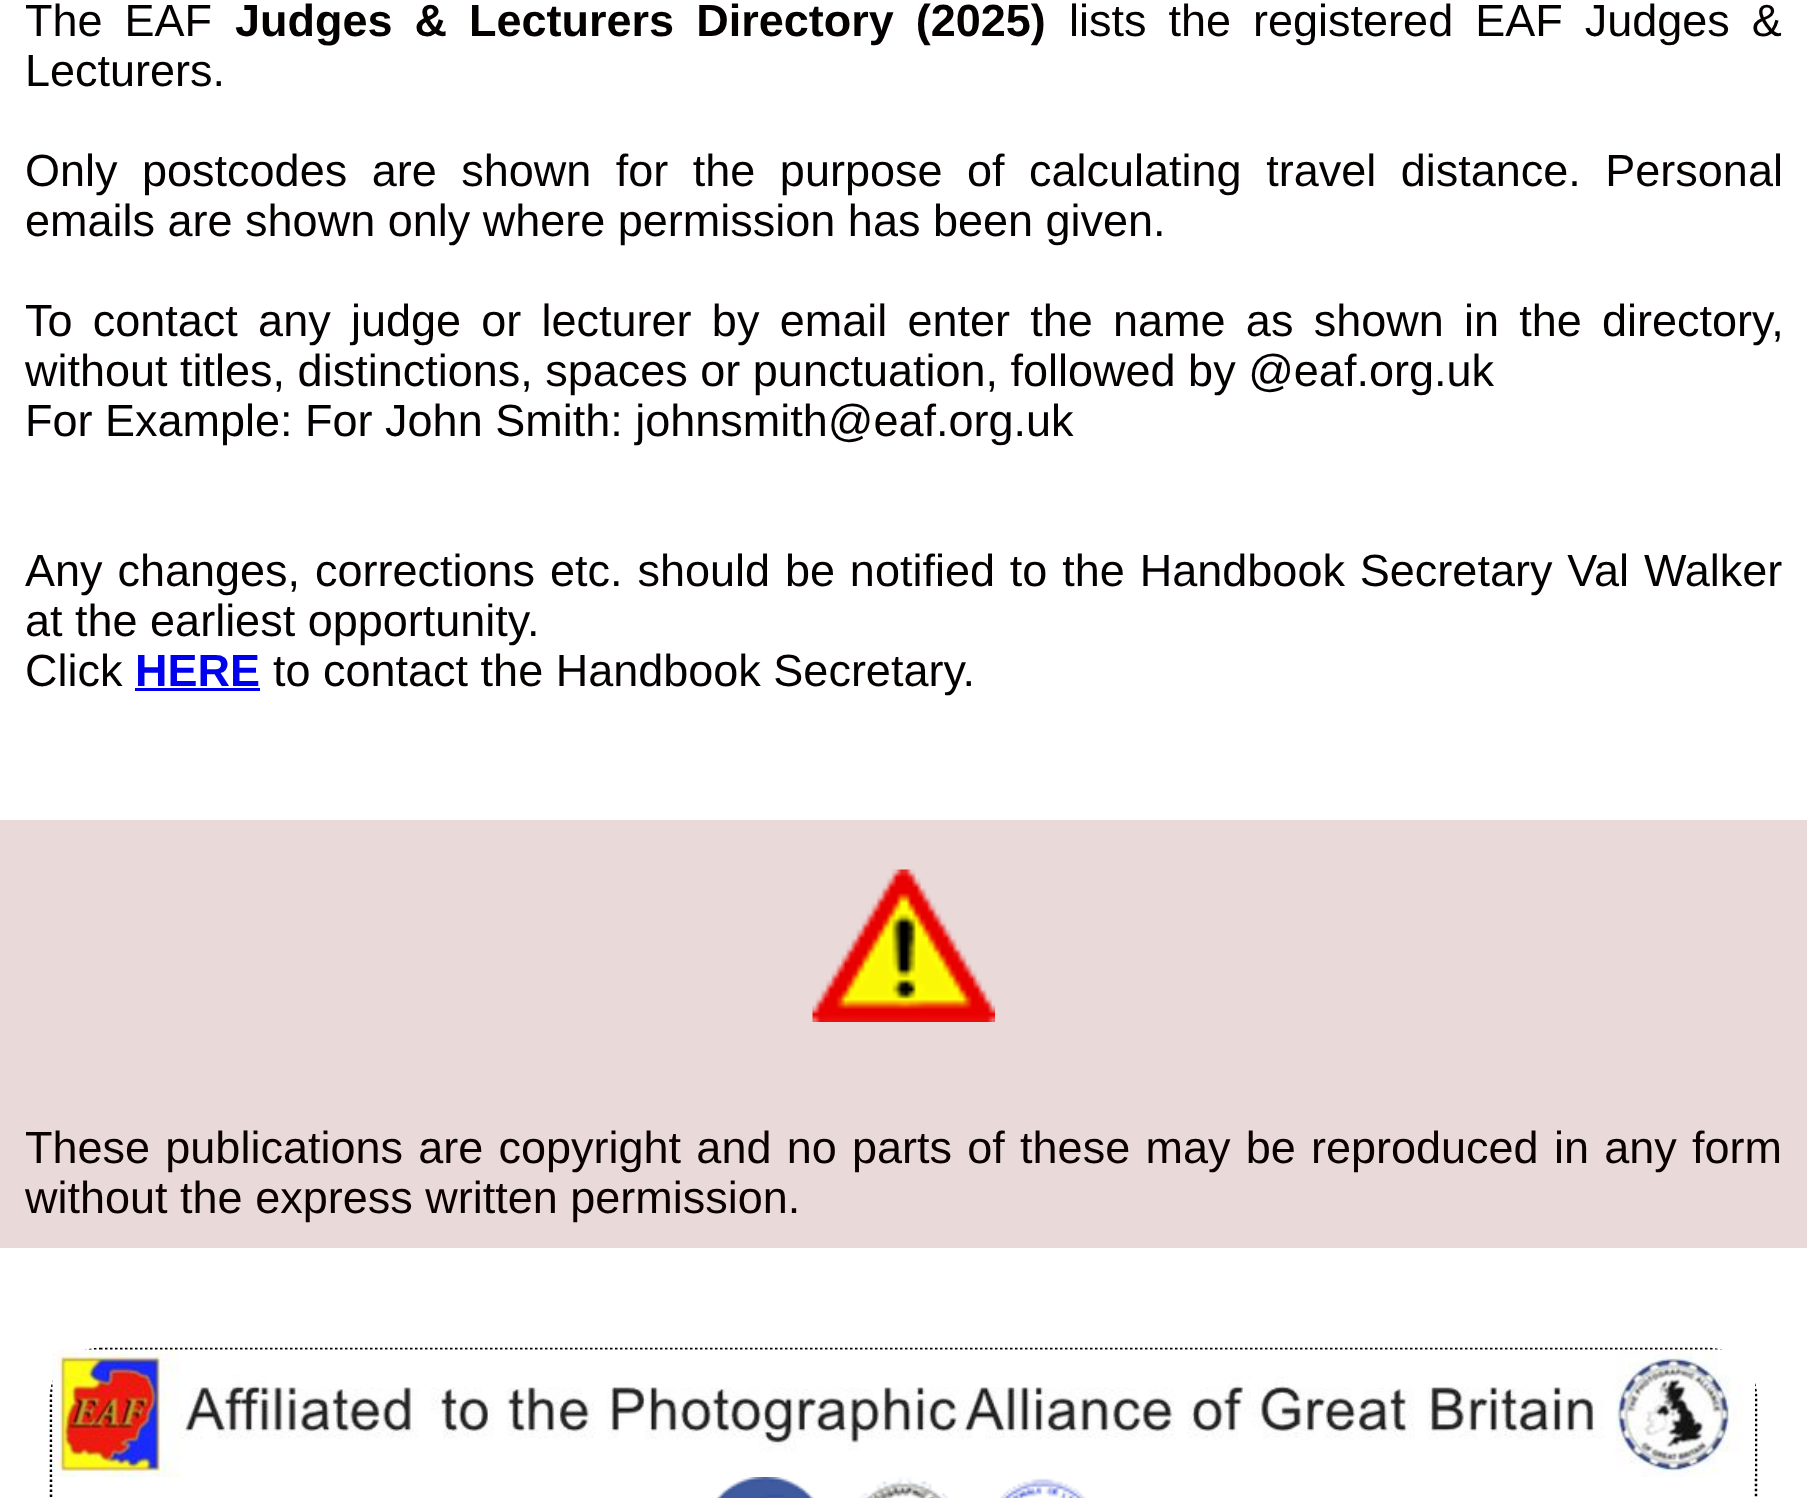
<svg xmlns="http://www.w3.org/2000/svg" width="1807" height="1498">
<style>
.a{font:45px Liberation Sans;fill:#040000}
.b{font:bold 45px Liberation Sans;fill:#040000}
.c{font:bold 45px Liberation Sans;fill:#00e}
.d{font:45px Liberation Sans;fill:#0a0000}
</style>
<rect width="100%" height="100%" fill="#fff"/>
<path fill="#00e" d="M135 688h125v3H135z"/>
<path fill="#e9d9d9" d="M0 820h1807v428H0z"/>
<image href="1.png" x="812" y="869" width="183" height="153"/>
<path fill="none" stroke="#000" stroke-width="2.5" stroke-dasharray="2.5 2.5" d="M100 1349h1607.5c27 0 48.5 21.5 48.5 48.5v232.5c0 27-21.5 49-48.5 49h-1607.5c-27 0-49-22-49-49v-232.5c0-27 22-48.5 49-48.5z"/>
<image href="2.png" x="52" y="1349" width="1703" height="128"/>
<image href="3.png" x="715" y="1477" width="100" height="21"/>
<image href="4.png" x="858" y="1477" width="91" height="21"/>
<image href="5.png" x="999" y="1478" width="88" height="20"/>
<text class="a" x="25" y="36" word-spacing="9.5">The EAF</text>
<text class="b" x="235" y="36" word-spacing="9.5">Judges &amp; Lecturers Directory (2025)</text>
<text class="a" x="1069" y="36" word-spacing="9.5">lists the registered EAF Judges &amp;</text>
<text class="a" x="25" y="86">Lecturers.</text>
<text class="a" x="25" y="186" word-spacing="12">Only postcodes are shown for the purpose of calculating travel distance. Personal</text>
<text class="a" x="25" y="236">emails are shown only where permission has been given.</text>
<text class="a" x="25" y="336" word-spacing="7.75">To contact any judge or lecturer by email enter the name as shown in the directory,</text>
<text class="a" x="25" y="386">without titles, distinctions, spaces or punctuation, followed by @eaf.org.uk</text>
<text class="a" x="25" y="436">For Example: For John Smith: johnsmith@eaf.org.uk</text>
<text class="a" x="25" y="586" word-spacing="2.4">Any changes, corrections etc. should be notified to the Handbook Secretary Val Walker</text>
<text class="a" x="25" y="636">at the earliest opportunity.</text>
<text class="a" x="25" y="686">Click</text>
<text class="c" x="135" y="686">HERE</text>
<text class="a" x="273" y="686">to contact the Handbook Secretary.</text>
<text class="d" x="25" y="1163" word-spacing="2.75">These publications are copyright and no parts of these may be reproduced in any form</text>
<text class="d" x="25" y="1213">without the express written permission.</text>
</svg>
